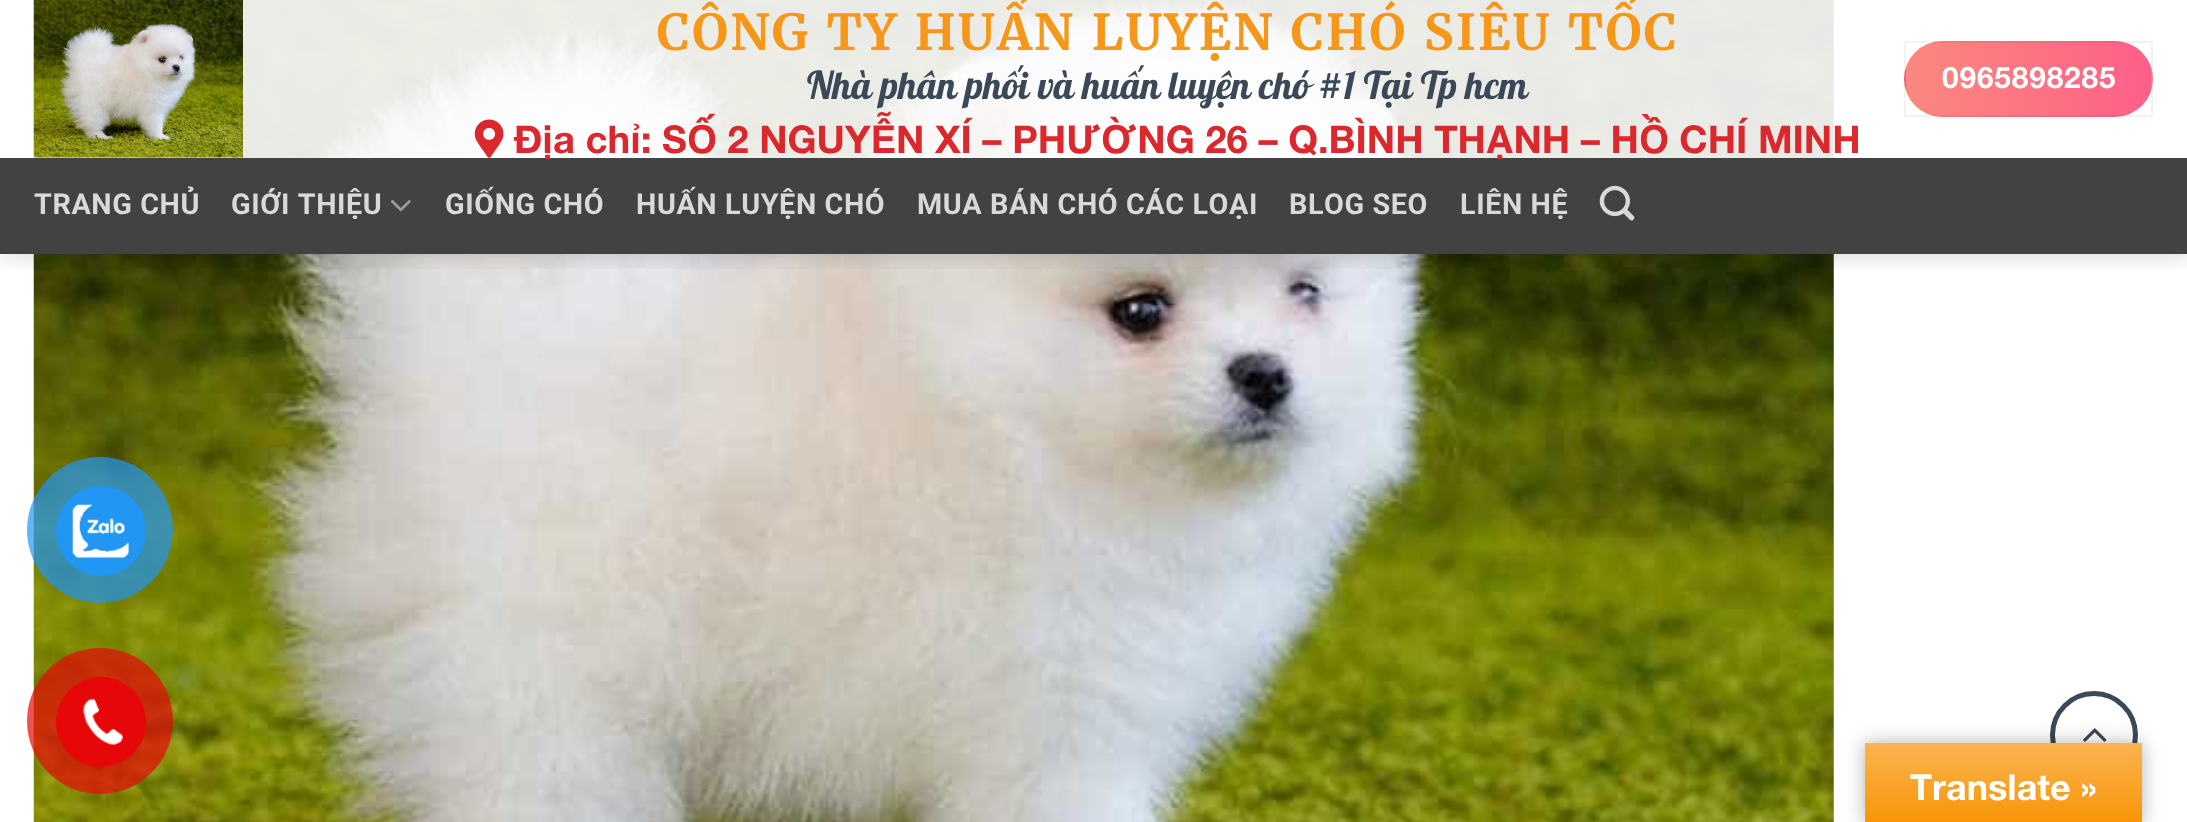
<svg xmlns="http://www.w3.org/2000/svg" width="2187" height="822">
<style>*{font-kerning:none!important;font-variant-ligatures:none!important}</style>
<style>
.a{font:bold 49.5px Merriweather;letter-spacing:2.25px;fill:#f79719}
.b{font:38.25px Lobster;fill:#3a4858}
.c{font:bold 38.25px Helvetica Neue;fill:#da282d}
.d{font:bold 29.75px Helvetica Neue;letter-spacing:0.9px;fill:#fff}
.e{font:bold 28.75px Roboto;letter-spacing:0.6px;fill:#d9d9d9}
.f{font:bold 36px Helvetica Neue;fill:#fff}
</style>
<defs>
<clipPath id="clip1"><path d="M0 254h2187v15H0z"/></clipPath>
<clipPath id="clip2"><rect x="1904" y="41" width="249" height="76" rx="38"/></clipPath>
<linearGradient id="g1" gradientUnits="userSpaceOnUse" x1="1661" y1="79" x2="1906" y2="79"><stop offset="0" stop-color="#fa897d"/><stop offset="1" stop-color="#fe5f88"/></linearGradient>
<linearGradient id="g2" gradientUnits="userSpaceOnUse" x1="1906" y1="79" x2="2151" y2="79"><stop offset="0" stop-color="#fa897d"/><stop offset="1" stop-color="#fe5f88"/></linearGradient>
<linearGradient id="g3" gradientUnits="userSpaceOnUse" x1="2151" y1="79" x2="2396" y2="79"><stop offset="0" stop-color="#fa897d"/><stop offset="1" stop-color="#fe5f88"/></linearGradient>
<linearGradient id="g4" gradientUnits="userSpaceOnUse" x1="2004" y1="743" x2="2004" y2="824"><stop offset="0" stop-color="#fbb450"/><stop offset="1" stop-color="#f89406"/></linearGradient>
</defs>
<rect width="100%" height="100%" fill="#fff"/>
<image href="1.png" x="33" y="0" width="1801" height="822"/>
<g clip-path="url(#clip1)">
<path fill="#00000026" filter="blur(11px)" d="M2 2h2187v255H2z"/>
</g>
<path fill="#ffffffe6" d="M33 0h1801v158H33z"/>
<image href="2.png" x="33" y="0" width="210" height="158"/>
<image href="3.png" x="474" y="119" width="30" height="39"/>
<g clip-path="url(#clip2)">
<path fill="url(#g1)" d="M1904 67h2v24H1904z"/>
<path fill="url(#g2)" d="M1906 41h245v76H1906z"/>
<path fill="url(#g3)" d="M2151 67h2v24H2151z"/>
</g>
<path fill="none" stroke="#0000000d" stroke-width="2" d="M1905 42h247v74H1905z"/>
<path fill="#424242" d="M0 158h2187v96H0z"/>
<path fill="#3a48581a" d="M545 158h958v2H545z"/>
<image href="4.png" x="390" y="200" width="21" height="12"/>
<image href="5.png" x="1599" y="185" width="36" height="36"/>
<circle fill="none" stroke="#3a4858" stroke-width="5" cx="2094" cy="735" r="41.5"/>
<image href="6.png" x="2083" y="728" width="24" height="14"/>
<circle fill="#2196f3b3" cx="100" cy="530" r="73"/>
<circle fill="#2196f3" cx="101" cy="531" r="45"/>
<image href="7.png" x="72" y="504" width="57" height="54"/>
<circle fill="#e60808b3" cx="100" cy="721" r="73"/>
<circle fill="#e60808" cx="101" cy="722" r="45"/>
<image href="8.png" x="83" y="698" width="40" height="47"/>
<path fill="#0000004d" filter="blur(10px)" d="M1865 743h277v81H1865z"/>
<path fill="url(#g4)" d="M1865 743h277v79H1865z"/>
<text class="a" x="657" y="50" word-spacing="2.25">CÔNG TY HUẤN LUYỆN CHÓ SIÊU TỐC</text>
<text class="b" x="807" y="99">Nhà phân phối</text>
<text class="b" x="1038" y="99">và huấn luyện</text>
<text class="b" x="1259" y="99">chó #1 Tại Tp hcm</text>
<text class="c" x="514" y="153">Địa chỉ: SỐ 2 NGUYỄN XÍ – PHƯỜNG 26 – Q.BÌNH THẠNH – HỒ CHÍ MINH</text>
<text class="d" x="1942" y="88">0965898285</text>
<text class="e" x="34" y="214">TRANG CHỦ</text>
<text class="e" x="231" y="214">GIỚI THIỆU</text>
<text class="e" x="445" y="214">GIỐNG CHÓ</text>
<text class="e" x="636" y="214">HUẤN LUYỆN CHÓ</text>
<text class="e" x="917" y="214">MUA BÁN CHÓ CÁC LOẠI</text>
<text class="e" x="1289" y="214">BLOG SEO</text>
<text class="e" x="1460" y="214">LIÊN HỆ</text>
<text class="f" x="1910" y="800">Translate »</text>
</svg>
